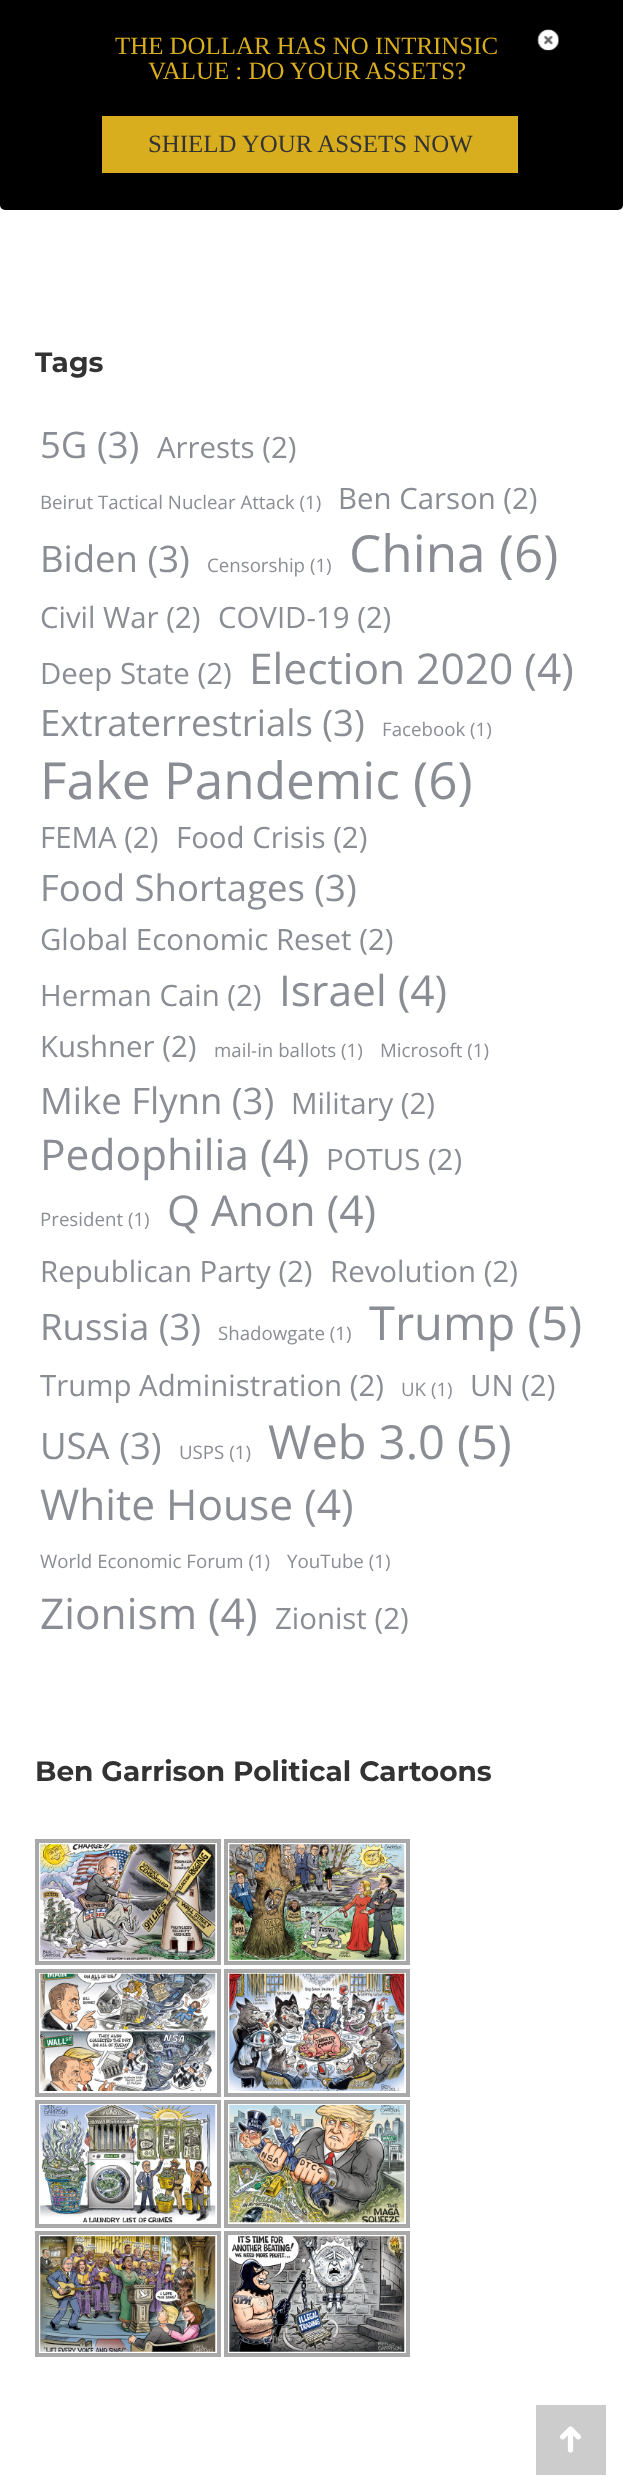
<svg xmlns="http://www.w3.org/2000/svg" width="623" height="2492">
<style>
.a{font:24.9px Liberation Serif;fill:#d8ad1e}
.b{font:24.9px Liberation Serif;fill:#333}
.c{font:bold 28px Montserrat;fill:#333}
.d{font:36.5px Open Sans;fill:#8b8d94}
.e{font:29.4px Open Sans;fill:#8b8d94}
.f{font:18.7px Open Sans;fill:#8b8d94}
.g{font:51.25px Open Sans;fill:#8b8d94}
.h{font:42.5px Open Sans;fill:#8b8d94}
.i{font:47px Open Sans;fill:#8b8d94}
</style>
<rect width="100%" height="100%" fill="#fff"/>
<path fill="#000" d="M0 0h623v5H0z"/>
<rect fill="#000" width="623" height="210" rx="5"/>
<image href="1.png" x="537" y="29" width="22" height="22"/>
<path fill="#d8ad1e" d="M102 116h416v57H102z"/>
<path fill="none" stroke="#a9a9a9" stroke-width="4" d="M37 1841h182v122H37z"/>
<image href="2.png" x="40" y="1844" width="176" height="116"/>
<path fill="none" stroke="#a9a9a9" stroke-width="4" d="M226 1841h182v122H226z"/>
<image href="3.png" x="229" y="1844" width="176" height="116"/>
<path fill="none" stroke="#a9a9a9" stroke-width="4" d="M37 1971h182v124H37z"/>
<image href="4.png" x="40" y="1973" width="176" height="118"/>
<path fill="none" stroke="#a9a9a9" stroke-width="4" d="M226 1971h182v124H226z"/>
<image href="5.png" x="229" y="1973" width="176" height="118"/>
<path fill="none" stroke="#a9a9a9" stroke-width="4" d="M37 2102h182v124H37z"/>
<image href="6.png" x="40" y="2105" width="176" height="118"/>
<path fill="none" stroke="#a9a9a9" stroke-width="4" d="M226 2102h182v124H226z"/>
<image href="7.png" x="229" y="2105" width="176" height="118"/>
<path fill="none" stroke="#a9a9a9" stroke-width="4" d="M37 2233h182v122H37z"/>
<image href="8.png" x="40" y="2236" width="176" height="116"/>
<path fill="none" stroke="#a9a9a9" stroke-width="4" d="M226 2233h182v122H226z"/>
<image href="9.png" x="229" y="2236" width="176" height="116"/>
<path fill="#ccc" d="M536 2405h70v70H536z"/>
<image href="10.png" x="560" y="2426" width="21" height="27"/>
<text class="a" x="115" y="54">THE DOLLAR HAS NO INTRINSIC</text>
<text class="a" x="148" y="79">VALUE : DO YOUR ASSETS?</text>
<text class="b" x="148" y="152">SHIELD YOUR ASSETS NOW</text>
<text class="c" x="35" y="372">Tags</text>
<text class="d" x="40" y="458">5G (3)</text>
<text class="e" x="157" y="458">Arrests (2)</text>
<text class="f" x="40" y="509">Beirut Tactical Nuclear Attack (1)</text>
<text class="e" x="338" y="509">Ben Carson (2)</text>
<text class="d" x="40" y="572">Biden (3)</text>
<text class="f" x="207" y="572">Censorship (1)</text>
<text class="g" x="349" y="572">China (6)</text>
<text class="e" x="40" y="628">Civil War (2)</text>
<text class="e" x="218" y="628">COVID-19 (2)</text>
<text class="e" x="40" y="684">Deep State (2)</text>
<text class="h" x="249" y="684">Election 2020 (4)</text>
<text class="d" x="40" y="736">Extraterrestrials (3)</text>
<text class="f" x="382" y="736">Facebook (1)</text>
<text class="g" x="40" y="799">Fake Pandemic (6)</text>
<text class="e" x="40" y="848">FEMA (2)</text>
<text class="e" x="176" y="848">Food Crisis (2)</text>
<text class="d" x="40" y="901">Food Shortages (3)</text>
<text class="e" x="40" y="950">Global Economic Reset (2)</text>
<text class="e" x="40" y="1006">Herman Cain (2)</text>
<text class="h" x="279" y="1006">Israel (4)</text>
<text class="e" x="40" y="1057">Kushner (2)</text>
<text class="f" x="214" y="1057">mail-in ballots (1)</text>
<text class="f" x="380" y="1057">Microsoft (1)</text>
<text class="d" x="40" y="1114">Mike Flynn (3)</text>
<text class="e" x="291" y="1114">Military (2)</text>
<text class="h" x="40" y="1170">Pedophilia (4)</text>
<text class="e" x="326" y="1170">POTUS (2)</text>
<text class="f" x="40" y="1226">President (1)</text>
<text class="h" x="167" y="1226">Q Anon (4)</text>
<text class="e" x="40" y="1282">Republican Party (2)</text>
<text class="e" x="330" y="1282">Revolution (2)</text>
<text class="d" x="40" y="1340">Russia (3)</text>
<text class="f" x="218" y="1340">Shadowgate (1)</text>
<text class="i" x="369" y="1340">Trump (5)</text>
<text class="e" x="40" y="1396">Trump Administration (2)</text>
<text class="f" x="401" y="1396">UK (1)</text>
<text class="e" x="470" y="1396">UN (2)</text>
<text class="d" x="40" y="1459">USA (3)</text>
<text class="f" x="179" y="1459">USPS (1)</text>
<text class="i" x="268" y="1459">Web 3.0 (5)</text>
<text class="h" x="40" y="1520">White House (4)</text>
<text class="f" x="40" y="1568">World Economic Forum (1)</text>
<text class="f" x="287" y="1568">YouTube (1)</text>
<text class="h" x="40" y="1629">Zionism (4)</text>
<text class="e" x="275" y="1629">Zionist (2)</text>
<text class="c" x="35" y="1781">Ben Garrison Political Cartoons</text>
</svg>
